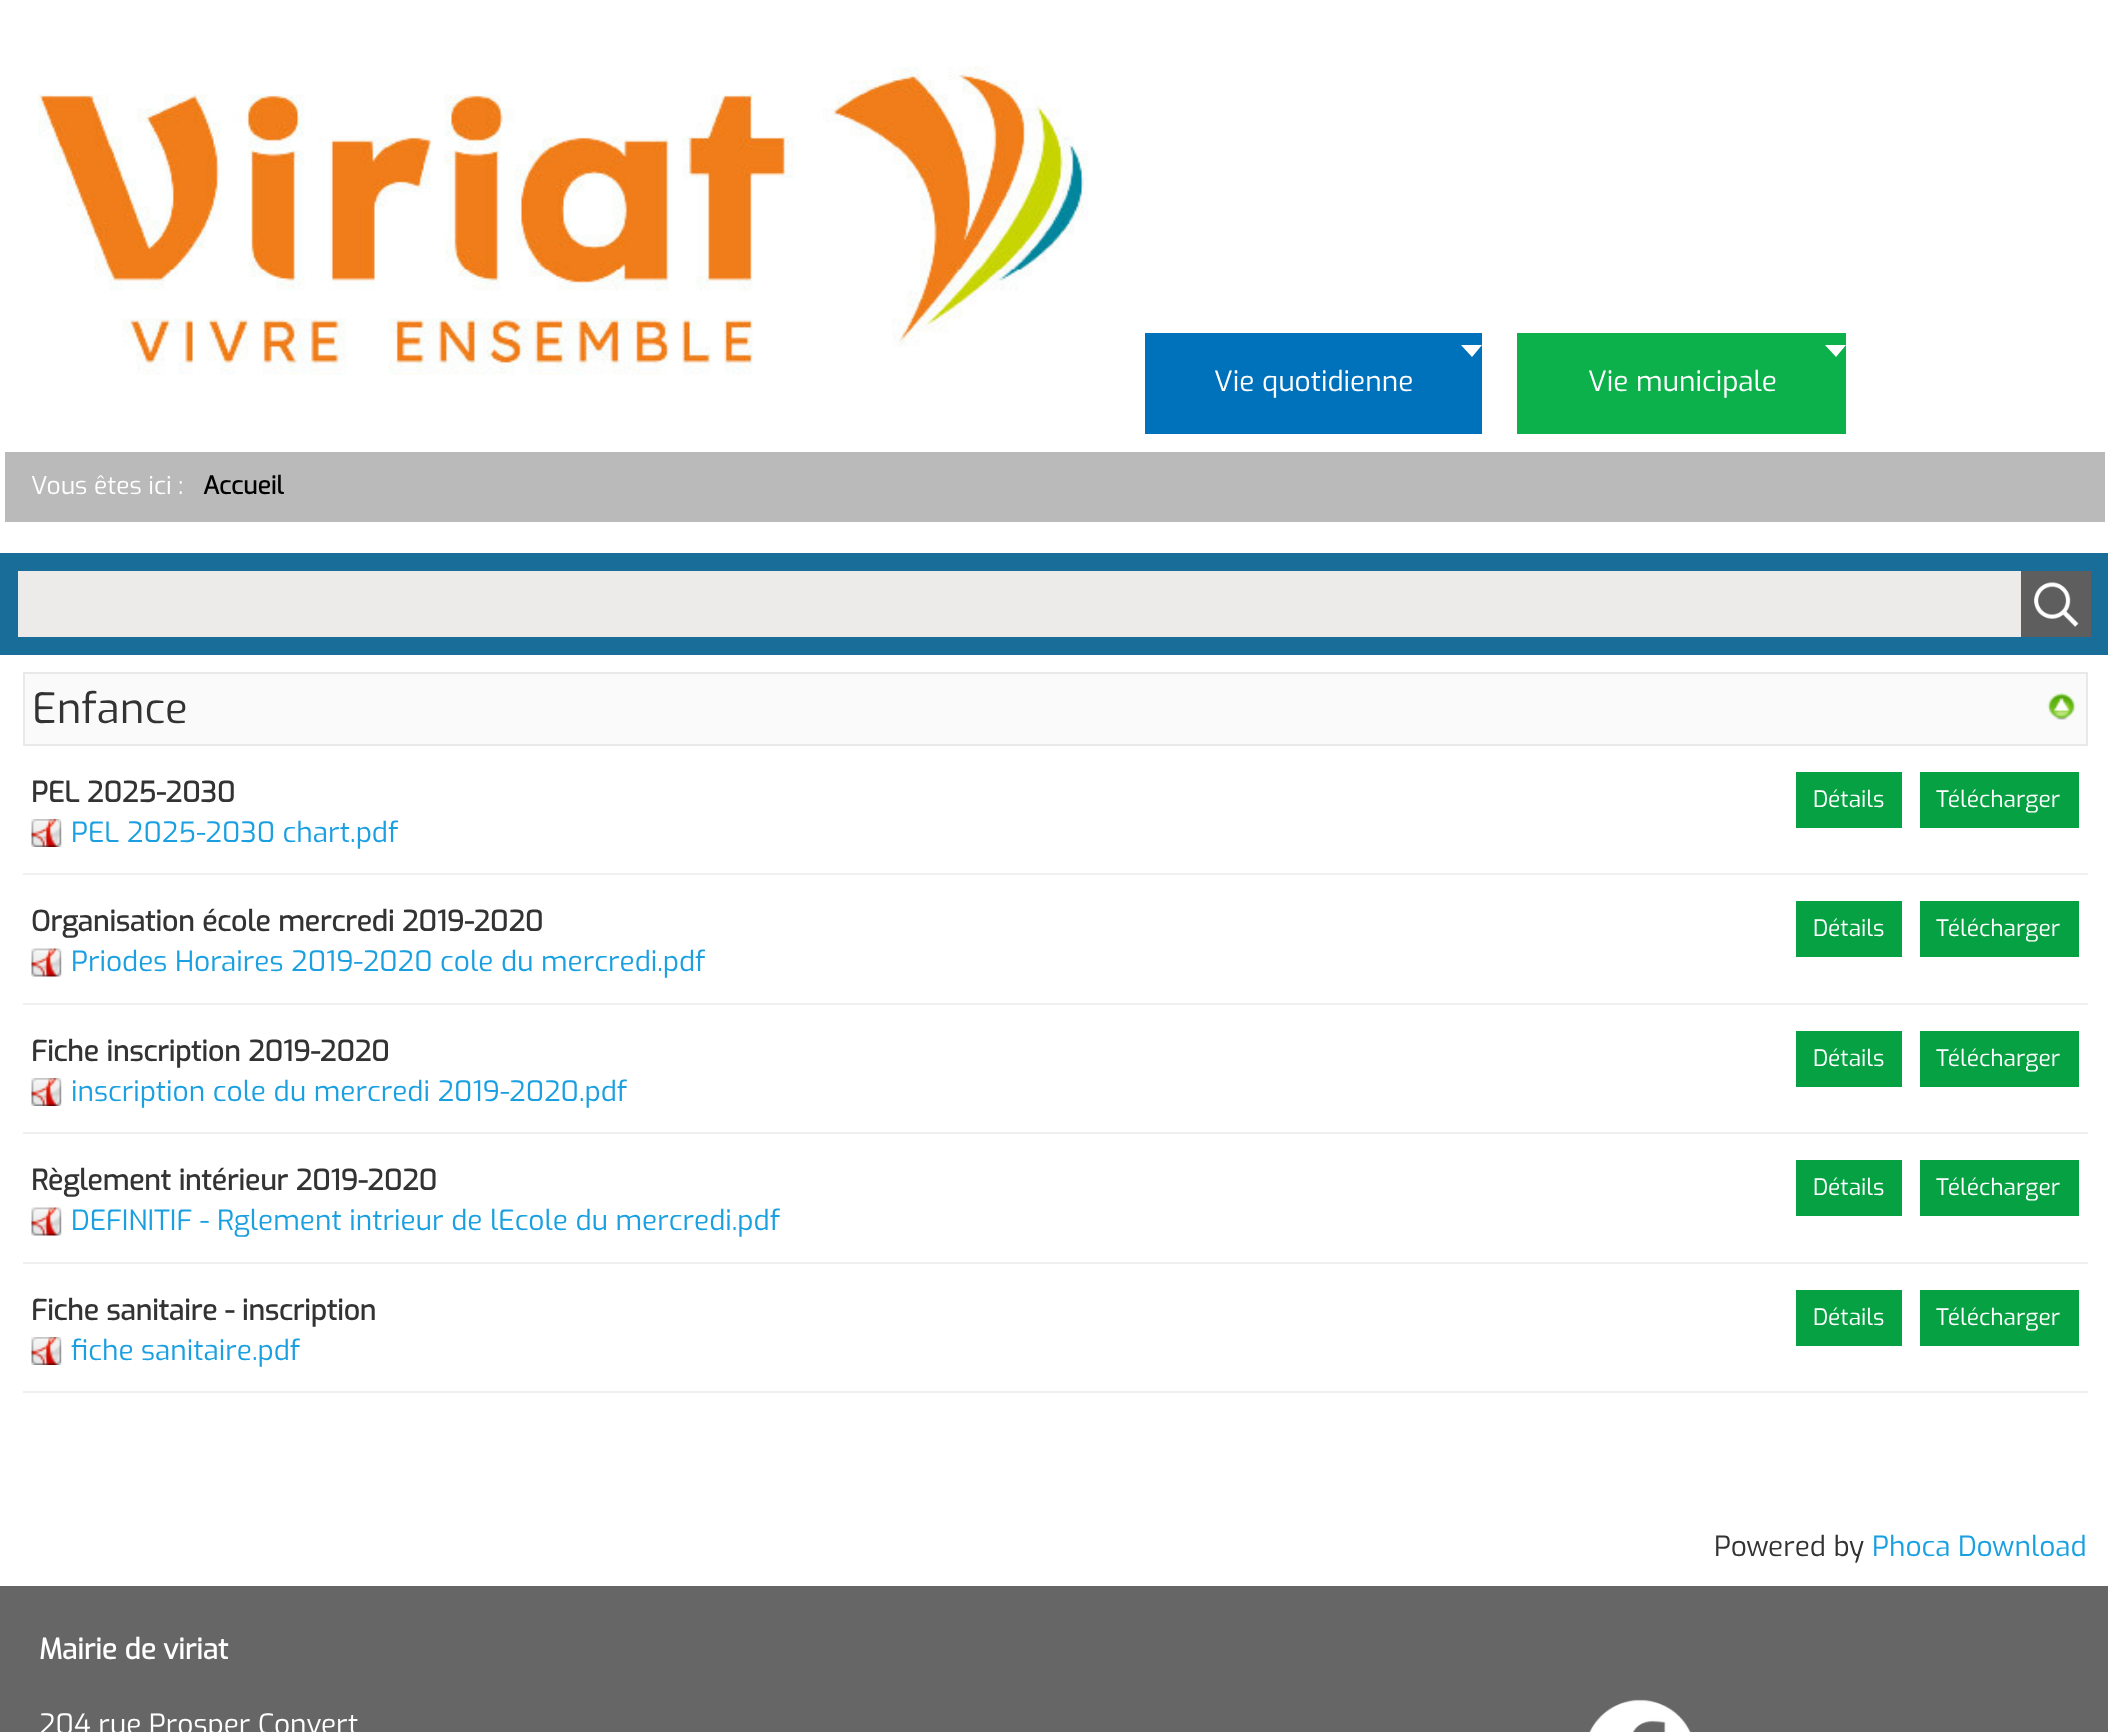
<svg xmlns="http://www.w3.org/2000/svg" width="2108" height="1732">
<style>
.a{font:28px Exo;fill:#fff}
.b{font:24.5px Exo;fill:#fff}
.c{font:bold 24.5px Exo;fill:#000}
.d{font:42px Exo;fill:#333}
.e{font:bold 28px Exo;fill:#333}
.f{font:28px Exo;fill:#1aa0e1}
.g{font:22.75px Exo;fill:#fff}
.h{font:28px Exo;fill:#333}
.i{font:bold 28px Exo;fill:#fff}
</style>
<rect width="100%" height="100%" fill="#fff"/>
<image href="1.png" x="38" y="66" width="1051" height="309"/>
<path fill="#0072bc" d="M1145 333h337v101H1145z"/>
<path fill="#fff" d="M1461 345h21l-10 12z"/>
<path fill="#0db14b" d="M1517 333h329v101H1517z"/>
<path fill="#fff" d="M1825 345h21l-10 12z"/>
<path fill="#bababa" d="M5 452h2100v70H5z"/>
<path fill="#186e99" d="M0 553h2108v102H0z"/>
<path fill="#edeaea" d="M18 571h2003v66H18z"/>
<path fill="#5f5e5e" d="M2021 571h70v66H2021z"/>
<image href="2.png" x="2034" y="582" width="45" height="45"/>
<path fill="#fafafa" stroke="#e9e9e9" stroke-width="2" d="M24 673h2063v72H24z"/>
<image href="3.png" x="2047" y="693" width="29" height="27"/>
<path fill="#f0f0f0" d="M23 873h2065v2H23z"/>
<image href="4.png" x="31" y="819" width="31" height="28"/>
<path fill="#06a142" d="M1796 772h106v56H1796z"/>
<path fill="#06a142" d="M1920 772h159v56H1920z"/>
<path fill="#f0f0f0" d="M23 1003h2065v2H23z"/>
<image href="5.png" x="31" y="948" width="31" height="29"/>
<path fill="#06a142" d="M1796 901h106v56H1796z"/>
<path fill="#06a142" d="M1920 901h159v56H1920z"/>
<path fill="#f0f0f0" d="M23 1132h2065v2H23z"/>
<image href="4.png" x="31" y="1078" width="31" height="28"/>
<path fill="#06a142" d="M1796 1031h106v56H1796z"/>
<path fill="#06a142" d="M1920 1031h159v56H1920z"/>
<path fill="#f0f0f0" d="M23 1262h2065v2H23z"/>
<image href="5.png" x="31" y="1207" width="31" height="29"/>
<path fill="#06a142" d="M1796 1160h106v56H1796z"/>
<path fill="#06a142" d="M1920 1160h159v56H1920z"/>
<path fill="#f0f0f0" d="M23 1391h2065v2H23z"/>
<image href="4.png" x="31" y="1337" width="31" height="28"/>
<path fill="#06a142" d="M1796 1290h106v56H1796z"/>
<path fill="#06a142" d="M1920 1290h159v56H1920z"/>
<path fill="#666" d="M0 1586h2108v146H0z"/>
<image href="6.png" x="1589" y="1699" width="102" height="33"/>
<text class="a" x="1214" y="391">Vie quotidienne</text>
<text class="a" x="1588" y="391">Vie municipale</text>
<text class="b" x="31" y="494">Vous êtes ici :</text>
<text class="c" x="203" y="494">Accueil</text>
<text class="d" x="32" y="723">Enfance</text>
<text class="e" x="31" y="802">PEL 2025-2030</text>
<text class="f" x="71" y="842">PEL 2025-2030 chart.pdf</text>
<text class="g" x="1813" y="807">Détails</text>
<text class="g" x="1936" y="807">Télécharger</text>
<text class="e" x="31" y="931">Organisation école mercredi 2019-2020</text>
<text class="f" x="71" y="971">Priodes Horaires 2019-2020 cole du mercredi.pdf</text>
<text class="g" x="1813" y="936">Détails</text>
<text class="g" x="1936" y="936">Télécharger</text>
<text class="e" x="31" y="1061">Fiche inscription 2019-2020</text>
<text class="f" x="71" y="1101">inscription cole du mercredi 2019-2020.pdf</text>
<text class="g" x="1813" y="1066">Détails</text>
<text class="g" x="1936" y="1066">Télécharger</text>
<text class="e" x="31" y="1190">Règlement intérieur 2019-2020</text>
<text class="f" x="71" y="1230">DEFINITIF - Rglement intrieur de lEcole du mercredi.pdf</text>
<text class="g" x="1813" y="1195">Détails</text>
<text class="g" x="1936" y="1195">Télécharger</text>
<text class="e" x="31" y="1320">Fiche sanitaire - inscription</text>
<text class="f" x="71" y="1360">fiche sanitaire.pdf</text>
<text class="g" x="1813" y="1325">Détails</text>
<text class="g" x="1936" y="1325">Télécharger</text>
<text class="h" x="1714" y="1556">Powered by</text>
<text class="f" x="1872" y="1556">Phoca Download</text>
<text class="i" x="39" y="1659">Mairie de viriat</text>
<text class="a" x="39" y="1734">204 rue Prosper Convert</text>
</svg>
